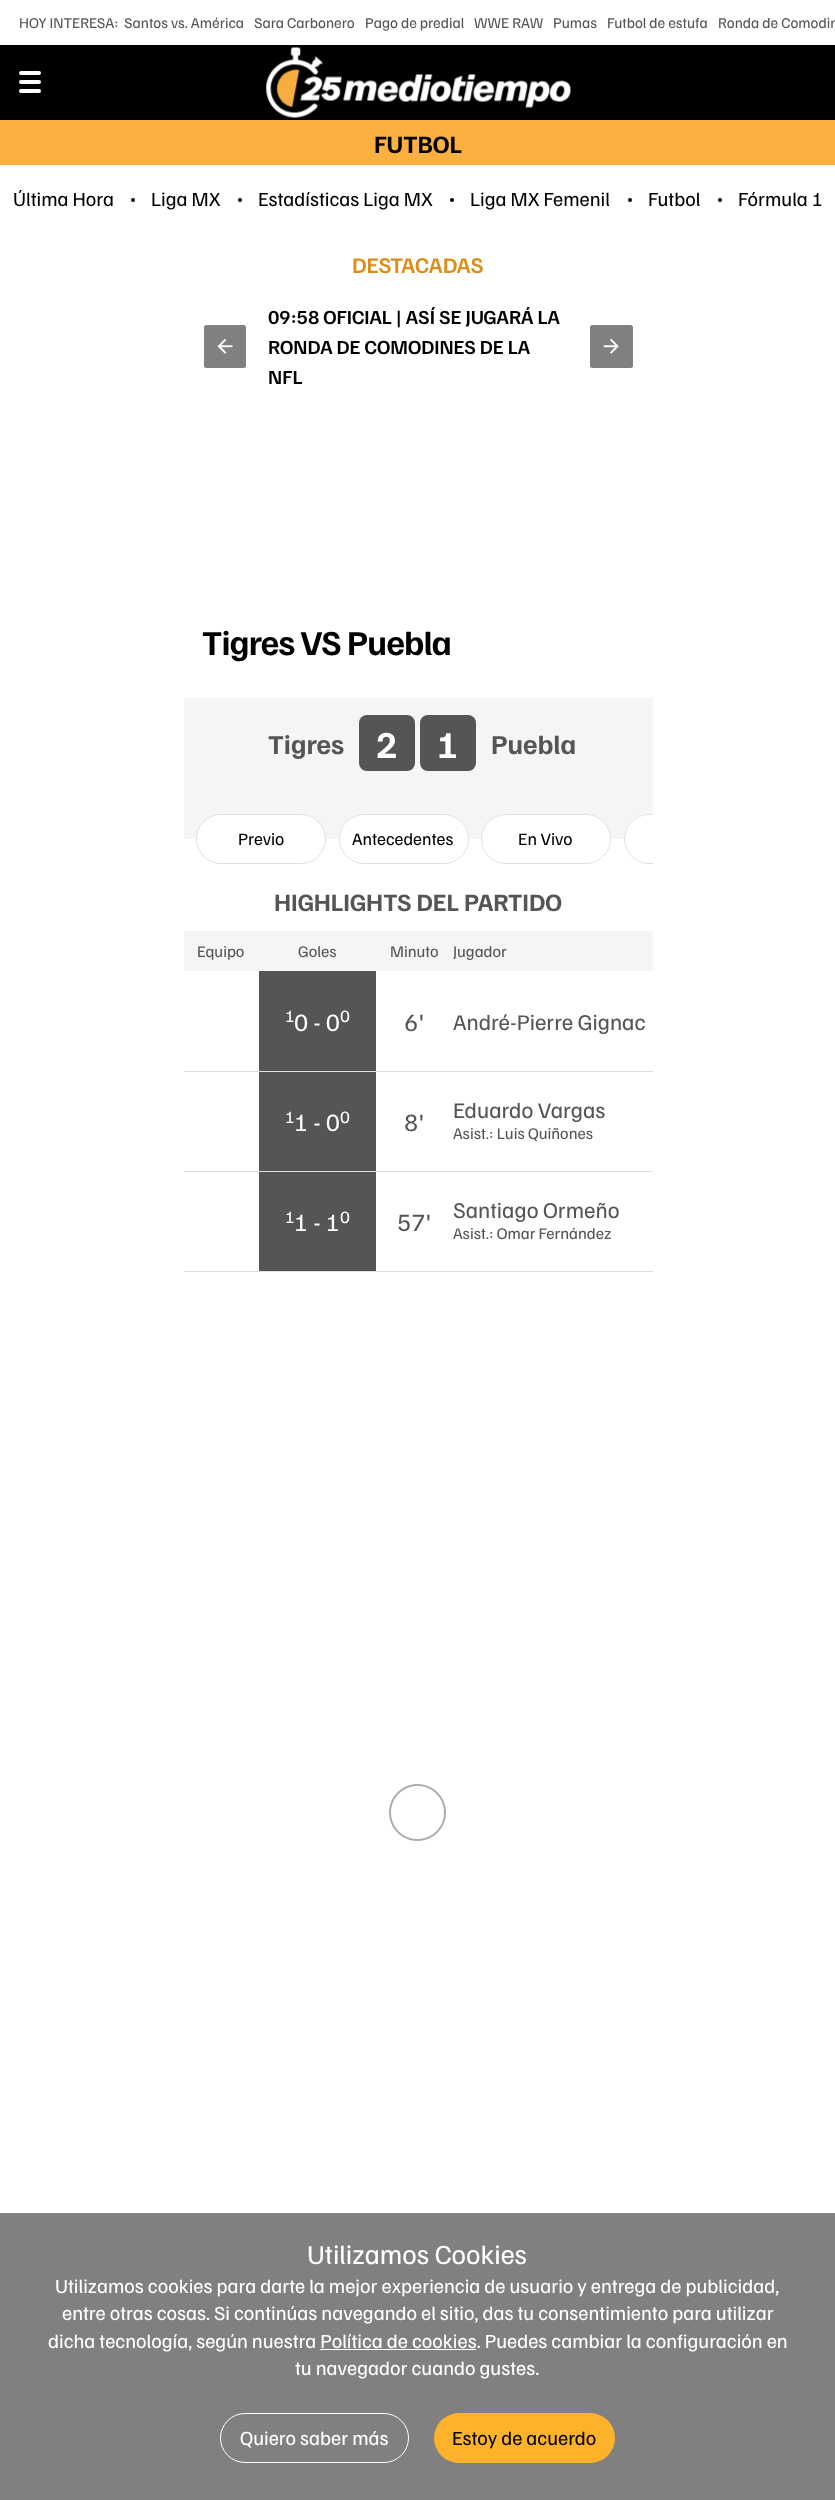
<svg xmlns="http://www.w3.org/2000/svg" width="835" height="2500">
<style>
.a{font:15px Familjen Grotesk;fill:#555}
.b{font:bold 25px Familjen Grotesk;fill:#000}
.c{font:20px Familjen Grotesk;fill:#000}
.d{font:600 22.5px Familjen Grotesk;fill:#dd8e18}
.e{font:600 20px Familjen Grotesk;fill:#000}
.f{font:bold 35px Familjen Grotesk;letter-spacing:-0.75px;fill:#000}
.g{font:bold 27.5px Familjen Grotesk;fill:#555}
.h{font:bold 38px Familjen Grotesk;fill:#fff}
.i{font:17.5px Familjen Grotesk;fill:#000}
.j{font:bold 25px Familjen Grotesk;fill:#555}
.k{font:16.25px Familjen Grotesk;fill:#555}
.l{font:17.5px Familjen Grotesk;fill:#fff}
.m{font:25px Familjen Grotesk;fill:#fff}
.n{font:25px Familjen Grotesk;fill:#555}
.o{font:22.5px Familjen Grotesk;fill:#555}
.p{font:27.5px Familjen Grotesk;fill:#fff}
.q{font:20px Familjen Grotesk;fill:#fff}
</style>
<defs>
<clipPath id="clip1"><path d="M184 814h469v50H184z"/></clipPath>
</defs>
<rect width="100%" height="100%" fill="#fff"/>
<path fill="#000" d="M0 45h835v75H0z"/>
<rect fill="#fff" x="19" y="71" width="22" height="4" rx="2"/>
<rect fill="#fff" x="19" y="80" width="22" height="4" rx="2"/>
<rect fill="#fff" x="19" y="89" width="22" height="4" rx="2"/>
<image href="1.png" x="266" y="47" width="306" height="71"/>
<path fill="#fbb040" d="M0 120h835v45H0z"/>
<circle fill="#000" cx="133" cy="200" r="2"/>
<circle fill="#000" cx="240" cy="200" r="2"/>
<circle fill="#000" cx="452" cy="200" r="2"/>
<circle fill="#000" cx="630" cy="200" r="2"/>
<circle fill="#000" cx="720" cy="200" r="2"/>
<rect fill="#808080" x="204" y="325" width="42" height="43" rx="2.5"/>
<image href="2.png" x="217" y="339" width="16" height="15"/>
<rect fill="#808080" x="590" y="325" width="43" height="43" rx="2.5"/>
<image href="3.png" x="603" y="338" width="16" height="16"/>
<path fill="#f5f5f5" d="M184 698h469v141H184z"/>
<rect fill="#555" x="359" y="715" width="56" height="56" rx="8"/>
<rect fill="#555" x="420" y="715" width="56" height="56" rx="8"/>
<rect fill="#fff" stroke="#e0e0e0" x="196.5" y="814.5" width="129" height="49" rx="24.5"/>
<rect fill="#fff" stroke="#e0e0e0" x="339.5" y="814.5" width="129" height="49" rx="24.5"/>
<rect fill="#fff" stroke="#e0e0e0" x="481.5" y="814.5" width="129" height="49" rx="24.5"/>
<path fill="#fff" d="M649 814h4v50h-4c-14 0-25-11-25-25c0-14 11-25 25-25z"/>
<g clip-path="url(#clip1)">
<rect fill="none" stroke="#e0e0e0" x="624.5" y="814.5" width="129" height="49" rx="24.5"/>
</g>
<path fill="#f5f5f5" d="M184 931h469v40H184z"/>
<path fill="#e0e0e0" d="M184 1071h469v1H184z"/>
<path fill="#555" d="M259 971h117v100H259z"/>
<path fill="#e0e0e0" d="M184 1171h469v1H184z"/>
<path fill="#555" d="M259 1072h117v99H259z"/>
<path fill="#e0e0e0" d="M184 1271h469v1H184z"/>
<path fill="#555" d="M259 1172h117v99H259z"/>
<image href="4.png" x="389" y="1784" width="57" height="57"/>
<path fill="#808080" d="M0 2213h835v287H0z"/>
<path fill="#fff" d="M320 2349h156v1H320z"/>
<rect fill="none" stroke="#fff" x="220.5" y="2413.5" width="188" height="49" rx="24.5"/>
<rect fill="#fdb22b" x="434" y="2413" width="181" height="50" rx="25"/>
<text class="a" x="19" y="28">HOY INTERESA:</text>
<text class="a" x="124" y="28">Santos vs. América</text>
<text class="a" x="254" y="28">Sara Carbonero</text>
<text class="a" x="365" y="28">Pago de predial</text>
<text class="a" x="474" y="28">WWE RAW</text>
<text class="a" x="553" y="28">Pumas</text>
<text class="a" x="607" y="28">Futbol de estufa</text>
<text class="a" x="718" y="28">Ronda de Comodin</text>
<text class="b" x="374" y="153">FUTBOL</text>
<text class="c" x="13" y="206">Última Hora</text>
<text class="c" x="151" y="206">Liga MX</text>
<text class="c" x="258" y="206">Estadísticas Liga MX</text>
<text class="c" x="470" y="206">Liga MX Femenil</text>
<text class="c" x="648" y="206">Futbol</text>
<text class="c" x="738" y="206">Fórmula 1</text>
<text class="d" x="352" y="273">DESTACADAS</text>
<text class="e" x="268" y="324">09:58 OFICIAL | ASÍ SE JUGARÁ LA</text>
<text class="e" x="268" y="354">RONDA DE COMODINES DE LA</text>
<text class="e" x="268" y="384">NFL</text>
<text class="f" x="202" y="655">Tigres VS Puebla</text>
<text class="g" x="268" y="754">Tigres</text>
<text class="h" x="376" y="758">2</text>
<text class="h" x="437" y="758">1</text>
<text class="g" x="491" y="754">Puebla</text>
<text class="i" x="238" y="845">Previo</text>
<text class="i" x="352" y="845">Antecedentes</text>
<text class="i" x="518" y="845">En Vivo</text>
<text class="j" x="274" y="911">HIGHLIGHTS DEL PARTIDO</text>
<text class="k" x="197" y="957">Equipo</text>
<text class="k" x="298" y="957">Goles</text>
<text class="k" x="390" y="957">Minuto</text>
<text class="k" x="453" y="957">Jugador</text>
<text class="l" x="285" y="1022">1</text>
<text class="m" x="294" y="1031">0 - 0</text>
<text class="l" x="340" y="1022">0</text>
<text class="n" x="404" y="1031">6'</text>
<text class="o" x="453" y="1030">André-Pierre Gignac</text>
<text class="l" x="285" y="1123">1</text>
<text class="m" x="294" y="1131">1 - 0</text>
<text class="l" x="340" y="1123">0</text>
<text class="n" x="404" y="1131">8'</text>
<text class="o" x="453" y="1118">Eduardo Vargas</text>
<text class="k" x="453" y="1139">Asist.: Luis Quiñones</text>
<text class="l" x="285" y="1223">1</text>
<text class="m" x="294" y="1231">1 - 1</text>
<text class="l" x="340" y="1223">0</text>
<text class="n" x="397" y="1231">57'</text>
<text class="o" x="453" y="1218">Santiago Ormeño</text>
<text class="k" x="453" y="1239">Asist.: Omar Fernández</text>
<text class="p" x="307" y="2264">Utilizamos Cookies</text>
<text class="q" x="55" y="2293">Utilizamos cookies para darte la mejor experiencia de usuario y entrega de publicidad,</text>
<text class="q" x="62" y="2320">entre otras cosas. Si continúas navegando el sitio, das tu consentimiento para utilizar</text>
<text class="q" x="48" y="2348">dicha tecnología, según nuestra Política de cookies. Puedes cambiar la configuración en</text>
<text class="q" x="295" y="2375">tu navegador cuando gustes.</text>
<text class="q" x="240" y="2445">Quiero saber más</text>
<text class="c" x="452" y="2445">Estoy de acuerdo</text>
</svg>
